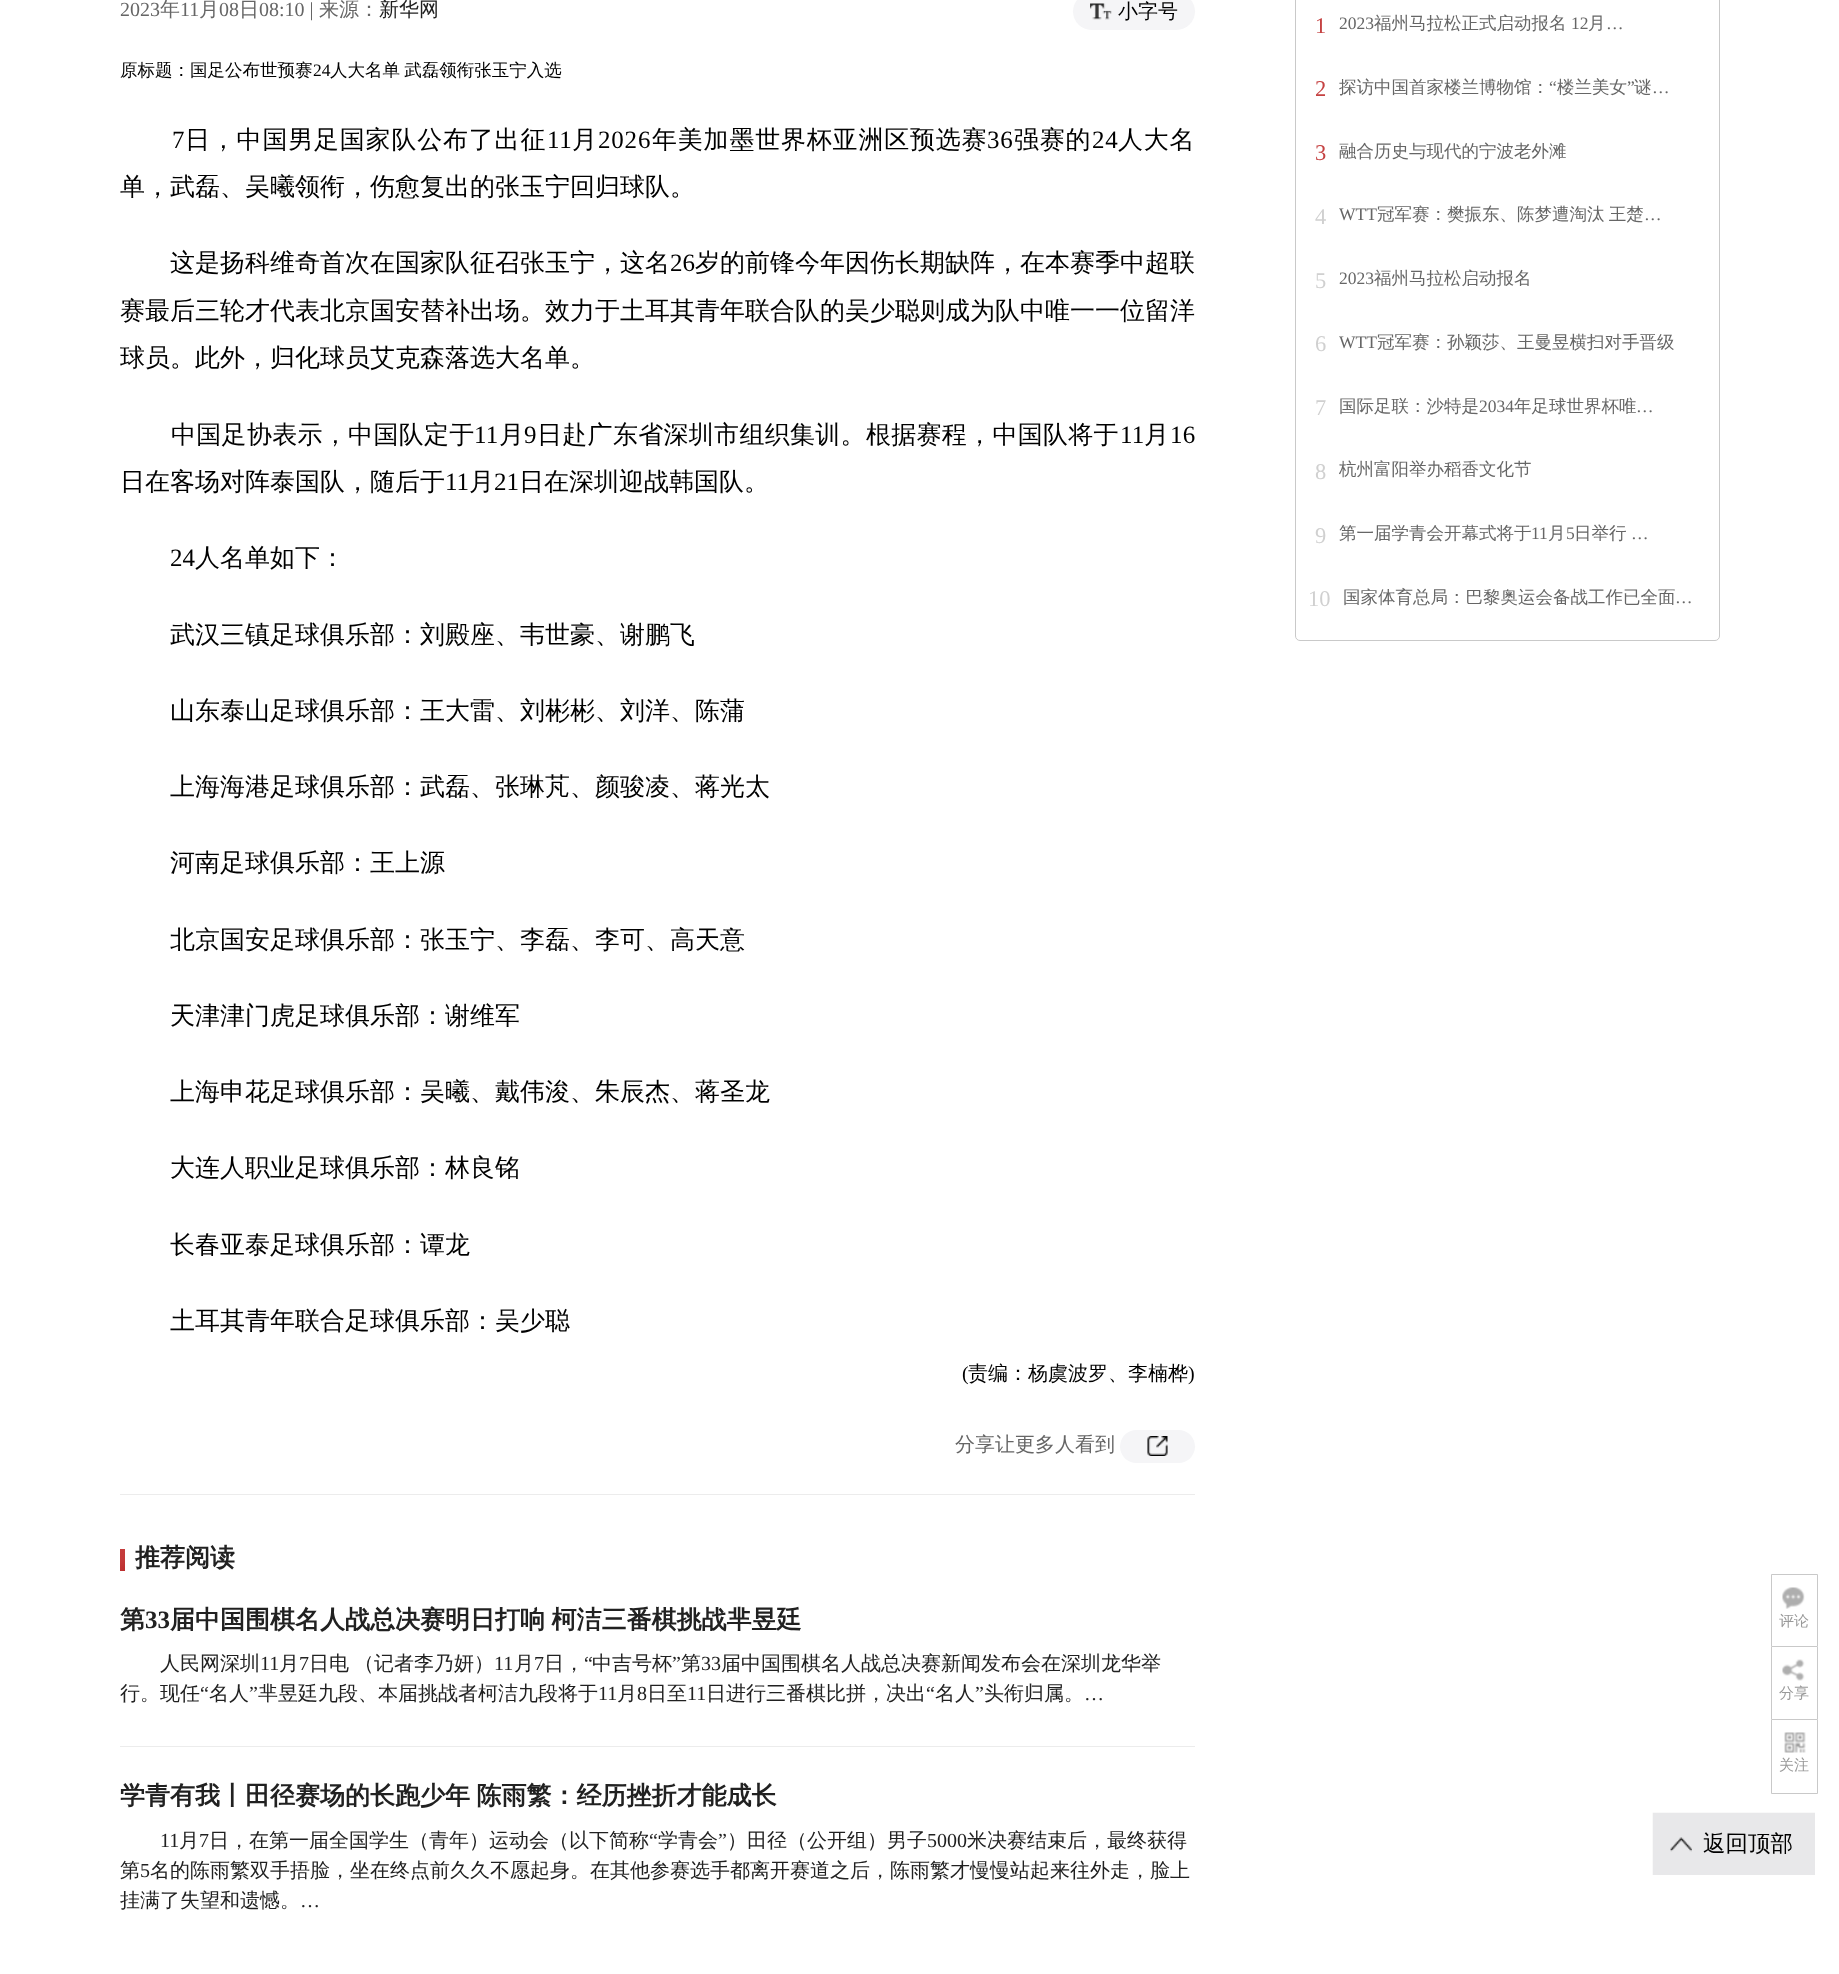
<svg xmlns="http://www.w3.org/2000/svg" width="1839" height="1974">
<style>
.a{font:20px Liberation Serif;fill:#666}
.b{font:500 20px WenQuanYi Zen Hei;fill:#666}
.c{font:500 20px WenQuanYi Zen Hei;fill:#212121}
.d{font:500 20px WenQuanYi Zen Hei;fill:#000}
.e{font:500 17.5px WenQuanYi Zen Hei;fill:#000}
.f{font:17.5px Liberation Serif;fill:#000}
.g{font:25px Liberation Serif;letter-spacing:0.8px;fill:#000}
.h{font:500 25px WenQuanYi Zen Hei;letter-spacing:0.8px;fill:#000}
.i{font:500 25px WenQuanYi Zen Hei;fill:#000}
.j{font:25px Liberation Serif;fill:#000}
.k{font:500 25px WenQuanYi Zen Hei;letter-spacing:0.3px;fill:#000}
.l{font:25px Liberation Serif;letter-spacing:0.3px;fill:#000}
.m{font:20px Liberation Serif;fill:#000}
.n{font:bold 25px WenQuanYi Zen Hei;fill:#212121}
.o{font:bold 25px Liberation Serif;fill:#212121}
.p{font:20px Liberation Serif;fill:#212121}
.q{font:22.5px Liberation Serif;fill:#c54242}
.r{font:17.5px Liberation Serif;fill:#666}
.s{font:500 17.5px WenQuanYi Zen Hei;fill:#666}
.t{font:22.5px Liberation Serif;fill:#d0d0d0}
.u{font:500 15px WenQuanYi Zen Hei;fill:#999}
.v{font:500 22.5px WenQuanYi Zen Hei;fill:#000}
</style>
<defs>
<linearGradient id="g1" gradientUnits="userSpaceOnUse" x1="116" y1="1553" x2="129" y2="1567"><stop offset="0" stop-color="#c53d3d"/><stop offset="0.49" stop-color="#c43a3a"/><stop offset="1" stop-color="#bb2d2d"/></linearGradient>
<clipPath id="clip1"><path d="M1771 1574h47v72H1771z"/></clipPath>
<clipPath id="clip2"><path d="M1771 1646h47v73H1771z"/></clipPath>
</defs>
<rect width="100%" height="100%" fill="#fff"/>
<rect fill="#f5f5f7" x="1073" y="-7" width="122" height="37" rx="18.5"/>
<image href="1.png" x="1090" y="3" width="22" height="17"/>
<rect fill="#f5f5f7" x="1120" y="1430" width="75" height="33" rx="16.5"/>
<image href="2.png" x="1147" y="1436" width="21" height="20"/>
<path fill="#ececec" d="M120 1494h1075v1H120z"/>
<path fill="url(#g1)" d="M120 1549h5v22H120z"/>
<path fill="#ececec" d="M120 1746h1075v1H120z"/>
<rect fill="none" stroke="#c9c9c9" x="1295.5" y="-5.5" width="424" height="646" rx="4.5"/>
<g clip-path="url(#clip1)">
<path fill="none" stroke="#c9c9c9" d="M1771.5 1574.5h46v75H1771.5z"/>
</g>
<image href="3.png" x="1782" y="1587" width="23" height="22"/>
<g clip-path="url(#clip2)">
<path fill="none" stroke="#c9c9c9" d="M1771.5 1646.5h46v74H1771.5z"/>
</g>
<image href="4.png" x="1782" y="1659" width="23" height="22"/>
<path fill="none" stroke="#c9c9c9" d="M1771.5 1719.5h46v74H1771.5z"/>
<image href="5.png" x="1784" y="1732" width="22" height="21"/>
<image href="6.png" x="1652" y="1812" width="163" height="63"/>
<text class="a" x="120" y="16">2023</text>
<text class="b" x="160" y="16">年</text>
<text class="a" x="180" y="16">11</text>
<text class="b" x="199" y="16">月</text>
<text class="a" x="219" y="16">08</text>
<text class="b" x="239" y="16">日</text>
<text class="a" x="259" y="16">08:10 |</text>
<text class="b" x="319" y="16">来源：</text>
<text class="c" x="379" y="16">新华网</text>
<text class="d" x="1118" y="18">小字号</text>
<text class="e" x="120" y="76">原标题：国足公布世预赛</text>
<text class="f" x="313" y="76">24</text>
<text class="e" x="330" y="76" word-spacing="-1">人大名单 武磊领衔张玉宁入选</text>
<text class="g" x="172" y="148">7</text>
<text class="h" x="185" y="148">日，中国男足国家队公布了出征</text>
<text class="g" x="547" y="148">11</text>
<text class="h" x="572" y="148">月</text>
<text class="g" x="598" y="148">2026</text>
<text class="h" x="652" y="148">年美加墨世界杯亚洲区预选赛</text>
<text class="g" x="987" y="148">36</text>
<text class="h" x="1014" y="148">强赛的</text>
<text class="g" x="1092" y="148">24</text>
<text class="h" x="1118" y="148">人大名</text>
<text class="i" x="120" y="195">单，武磊、吴曦领衔，伤愈复出的张玉宁回归球队。</text>
<text class="i" x="170" y="271">这是扬科维奇首次在国家队征召张玉宁，这名</text>
<text class="j" x="670" y="271">26</text>
<text class="i" x="695" y="271">岁的前锋今年因伤长期缺阵，在本赛季中超联</text>
<text class="i" x="120" y="319">赛最后三轮才代表北京国安替补出场。效力于土耳其青年联合队的吴少聪则成为队中唯一一位留洋</text>
<text class="i" x="120" y="366">球员。此外，归化球员艾克森落选大名单。</text>
<text class="k" x="171" y="443">中国足协表示，中国队定于</text>
<text class="l" x="474" y="443">11</text>
<text class="k" x="499" y="443">月</text>
<text class="l" x="524" y="443">9</text>
<text class="k" x="537" y="443">日赴广东省深圳市组织集训。根据赛程，中国队将于</text>
<text class="l" x="1120" y="443">11</text>
<text class="k" x="1144" y="443">月</text>
<text class="l" x="1170" y="443">16</text>
<text class="i" x="120" y="490">日在客场对阵泰国队，随后于</text>
<text class="j" x="445" y="490">11</text>
<text class="i" x="469" y="490">月</text>
<text class="j" x="494" y="490">21</text>
<text class="i" x="519" y="490">日在深圳迎战韩国队。</text>
<text class="j" x="170" y="566">24</text>
<text class="i" x="195" y="566">人名单如下：</text>
<text class="i" x="170" y="643">武汉三镇足球俱乐部：刘殿座、韦世豪、谢鹏飞</text>
<text class="i" x="170" y="719">山东泰山足球俱乐部：王大雷、刘彬彬、刘洋、陈蒲</text>
<text class="i" x="170" y="795">上海海港足球俱乐部：武磊、张琳芃、颜骏凌、蒋光太</text>
<text class="i" x="170" y="871">河南足球俱乐部：王上源</text>
<text class="i" x="170" y="948">北京国安足球俱乐部：张玉宁、李磊、李可、高天意</text>
<text class="i" x="170" y="1024">天津津门虎足球俱乐部：谢维军</text>
<text class="i" x="170" y="1100">上海申花足球俱乐部：吴曦、戴伟浚、朱辰杰、蒋圣龙</text>
<text class="i" x="170" y="1176">大连人职业足球俱乐部：林良铭</text>
<text class="i" x="170" y="1253">长春亚泰足球俱乐部：谭龙</text>
<text class="i" x="170" y="1329">土耳其青年联合足球俱乐部：吴少聪</text>
<text class="m" x="962" y="1380">(</text>
<text class="d" x="968" y="1380">责编：杨虞波罗、李楠桦</text>
<text class="m" x="1188" y="1380">)</text>
<text class="b" x="955" y="1451">分享让更多人看到</text>
<text class="n" x="135" y="1566">推荐阅读</text>
<text class="n" x="120" y="1628">第</text>
<text class="o" x="145" y="1628">33</text>
<text class="n" x="170" y="1628" word-spacing="-1">届中国围棋名人战总决赛明日打响 柯洁三番棋挑战芈昱廷</text>
<text class="c" x="160" y="1670">人民网深圳</text>
<text class="p" x="260" y="1670">11</text>
<text class="c" x="279" y="1670">月</text>
<text class="p" x="299" y="1670">7</text>
<text class="c" x="309" y="1670" word-spacing="-1">日电 （记者李乃妍）</text>
<text class="p" x="494" y="1670">11</text>
<text class="c" x="514" y="1670">月</text>
<text class="p" x="534" y="1670">7</text>
<text class="c" x="544" y="1670">日，</text>
<text class="p" x="584" y="1670">“</text>
<text class="c" x="592" y="1670">中吉号杯</text>
<text class="p" x="672" y="1670">”</text>
<text class="c" x="681" y="1670">第</text>
<text class="p" x="701" y="1670">33</text>
<text class="c" x="721" y="1670">届中国围棋名人战总决赛新闻发布会在深圳龙华举</text>
<text class="c" x="120" y="1700">行。现任</text>
<text class="p" x="200" y="1700">“</text>
<text class="c" x="209" y="1700">名人</text>
<text class="p" x="249" y="1700">”</text>
<text class="c" x="258" y="1700">芈昱廷九段、本届挑战者柯洁九段将于</text>
<text class="p" x="598" y="1700">11</text>
<text class="c" x="617" y="1700">月</text>
<text class="p" x="637" y="1700">8</text>
<text class="c" x="647" y="1700">日至</text>
<text class="p" x="687" y="1700">11</text>
<text class="c" x="706" y="1700">日进行三番棋比拼，决出</text>
<text class="p" x="926" y="1700">“</text>
<text class="c" x="935" y="1700">名人</text>
<text class="p" x="975" y="1700">”</text>
<text class="c" x="984" y="1700">头衔归属。</text>
<text class="p" x="1084" y="1700">…</text>
<text class="n" x="120" y="1804" word-spacing="-1">学青有我丨田径赛场的长跑少年 陈雨繁：经历挫折才能成长</text>
<text class="p" x="160" y="1847">11</text>
<text class="c" x="179" y="1847">月</text>
<text class="p" x="199" y="1847">7</text>
<text class="c" x="209" y="1847">日，在第一届全国学生（青年）运动会（以下简称</text>
<text class="p" x="649" y="1847">“</text>
<text class="c" x="658" y="1847">学青会</text>
<text class="p" x="718" y="1847">”</text>
<text class="c" x="727" y="1847">）田径（公开组）男子</text>
<text class="p" x="927" y="1847">5000</text>
<text class="c" x="967" y="1847">米决赛结束后，最终获得</text>
<text class="c" x="120" y="1877">第</text>
<text class="p" x="140" y="1877">5</text>
<text class="c" x="150" y="1877">名的陈雨繁双手捂脸，坐在终点前久久不愿起身。在其他参赛选手都离开赛道之后，陈雨繁才慢慢站起来往外走，脸上</text>
<text class="c" x="120" y="1907">挂满了失望和遗憾。</text>
<text class="p" x="300" y="1907">…</text>
<text class="q" x="1315" y="33">1</text>
<text class="r" x="1339" y="29">2023</text>
<text class="s" x="1374" y="29">福州马拉松正式启动报名</text>
<text class="r" x="1571" y="29">12</text>
<text class="s" x="1588" y="29">月</text>
<text class="r" x="1606" y="29">…</text>
<text class="q" x="1315" y="96">2</text>
<text class="s" x="1339" y="93">探访中国首家楼兰博物馆：</text>
<text class="r" x="1549" y="93">“</text>
<text class="s" x="1557" y="93">楼兰美女</text>
<text class="r" x="1627" y="93">”</text>
<text class="s" x="1634" y="93">谜</text>
<text class="r" x="1652" y="93">…</text>
<text class="q" x="1315" y="160">3</text>
<text class="s" x="1339" y="157">融合历史与现代的宁波老外滩</text>
<text class="t" x="1315" y="224">4</text>
<text class="r" x="1339" y="220">WTT</text>
<text class="s" x="1377" y="220" word-spacing="-1">冠军赛：樊振东、陈梦遭淘汰 王楚</text>
<text class="r" x="1644" y="220">…</text>
<text class="t" x="1315" y="288">5</text>
<text class="r" x="1339" y="284">2023</text>
<text class="s" x="1374" y="284">福州马拉松启动报名</text>
<text class="t" x="1315" y="351">6</text>
<text class="r" x="1339" y="348">WTT</text>
<text class="s" x="1377" y="348">冠军赛：孙颖莎、王曼昱横扫对手晋级</text>
<text class="t" x="1315" y="415">7</text>
<text class="s" x="1339" y="412">国际足联：沙特是</text>
<text class="r" x="1479" y="412">2034</text>
<text class="s" x="1514" y="412">年足球世界杯唯</text>
<text class="r" x="1636" y="412">…</text>
<text class="t" x="1315" y="479">8</text>
<text class="s" x="1339" y="475">杭州富阳举办稻香文化节</text>
<text class="t" x="1315" y="543">9</text>
<text class="s" x="1339" y="539">第一届学青会开幕式将于</text>
<text class="r" x="1531" y="539">11</text>
<text class="s" x="1548" y="539">月</text>
<text class="r" x="1566" y="539">5</text>
<text class="s" x="1574" y="539">日举行</text>
<text class="r" x="1631" y="539">…</text>
<text class="t" x="1308" y="606">10</text>
<text class="s" x="1343" y="603">国家体育总局：巴黎奥运会备战工作已全面</text>
<text class="r" x="1675" y="603">…</text>
<text class="u" x="1779" y="1626">评论</text>
<text class="u" x="1779" y="1698">分享</text>
<text class="u" x="1779" y="1770">关注</text>
<text class="v" x="1703" y="1851">返回顶部</text>
</svg>
